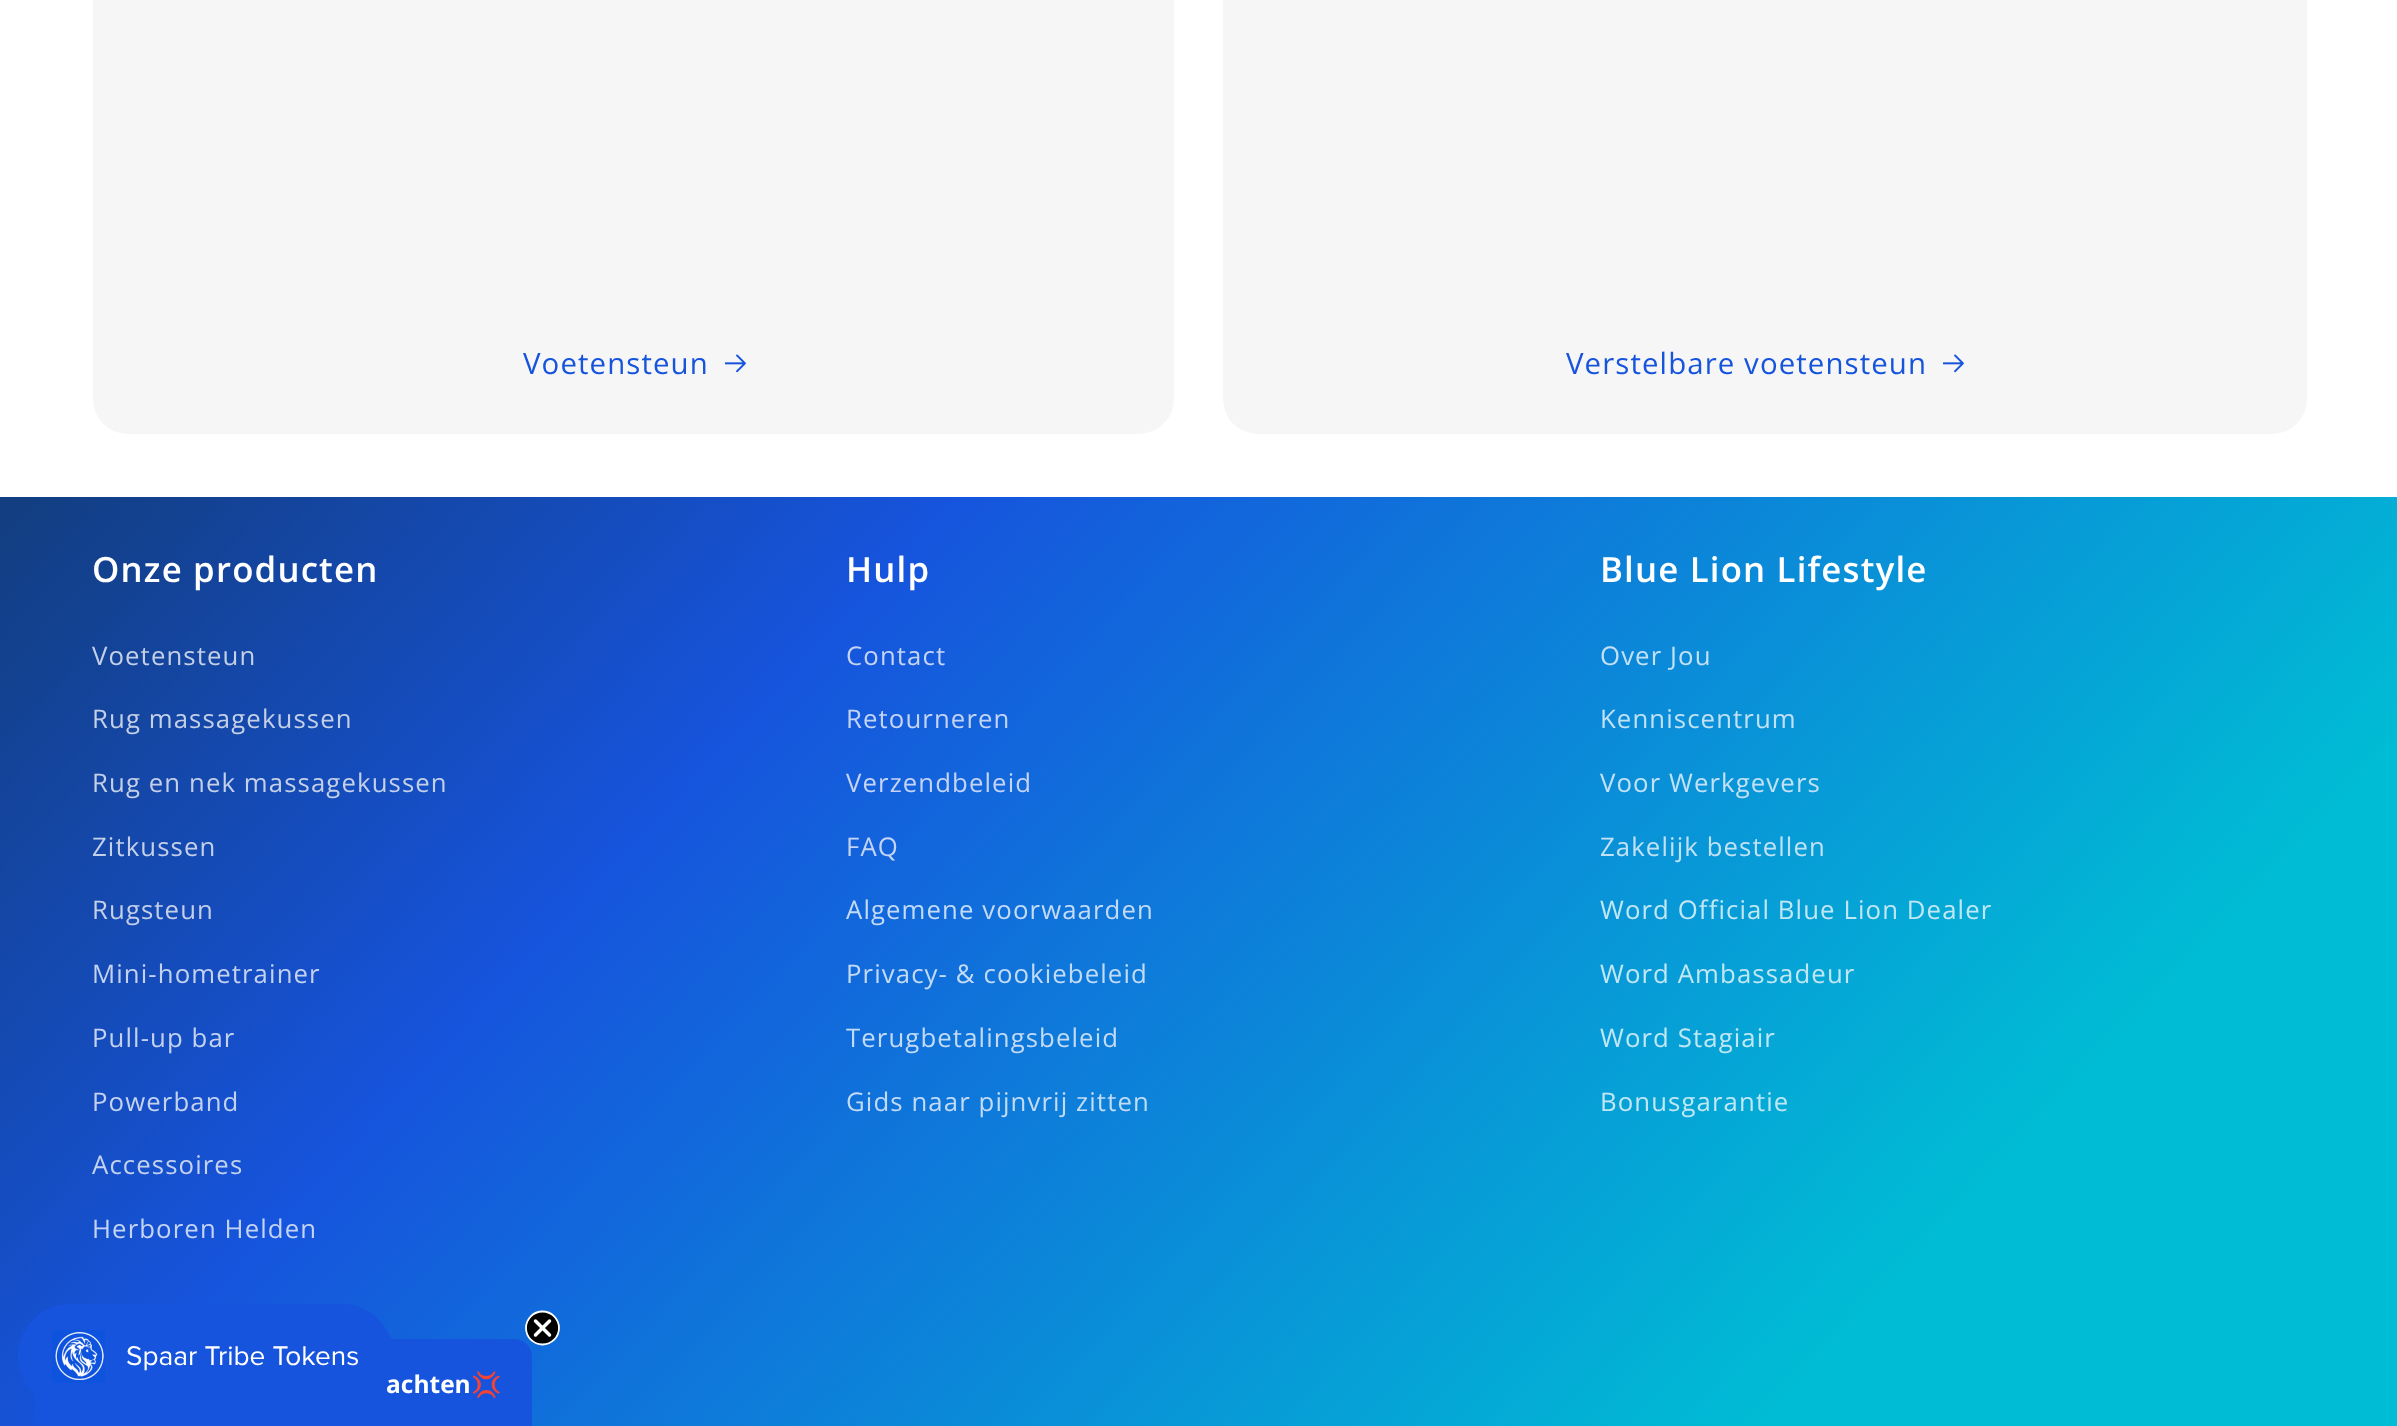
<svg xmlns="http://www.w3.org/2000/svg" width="2397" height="1426">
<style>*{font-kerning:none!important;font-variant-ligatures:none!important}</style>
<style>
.a{font:29.4px Open Sans;letter-spacing:1.1px;fill:#1654dd}
.b{font:600 34.75px Open Sans;letter-spacing:1.2px;fill:#fff}
.c{font:25.75px Open Sans;letter-spacing:1.1px;fill:#c4d0e7}
.d{font:25.75px Open Sans;letter-spacing:1.1px;fill:#c4d2ef}
.e{font:25.75px Open Sans;letter-spacing:1.1px;fill:#c5d4f5}
.f{font:25.75px Open Sans;letter-spacing:1.1px;fill:#c3dbf6}
.g{font:25.75px Open Sans;letter-spacing:1.1px;fill:#c2e1f5}
.h{font:25.75px Open Sans;letter-spacing:1.1px;fill:#c1e7f5}
.i{font:bold 24.5px Open Sans;fill:#fff}
.j{font:bold 24.5px Noto Color Emoji;fill:#fff}
</style>
<defs>
<linearGradient id="g1" gradientUnits="userSpaceOnUse" x1="202" y1="-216" x2="2196" y2="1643"><stop offset="0.01" stop-color="#135"/><stop offset="0.38" stop-color="#1654dd"/><stop offset="0.83" stop-color="#00bcd4"/></linearGradient>
</defs>
<rect width="100%" height="100%" fill="#fff"/>
<rect fill="#f6f6f6" x="93" y="-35" width="1081" height="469" rx="35"/>
<image href="1.png" x="725" y="354" width="21" height="19"/>
<rect fill="#f6f6f6" x="1223" y="-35" width="1084" height="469" rx="35"/>
<image href="1.png" x="1943" y="354" width="21" height="19"/>
<path fill="url(#g1)" d="M0 497h2397v929H0z"/>
<path fill="#1654dd" d="M53 1339h461c10 0 18 8 18 18v69h-497v-69c0-10 8-18 18-18z"/>
<circle fill="#000" stroke="#fff" stroke-width="1.8" cx="542.5" cy="1328" r="16.5"/>
<path fill="none" stroke="#fff" stroke-width="3.5" stroke-linecap="round" stroke-linejoin="round" d="M535.5 1321l14 14m-14 0l14-14z"/>
<text class="a" x="523" y="374">Voetensteun</text>
<text class="a" x="1566" y="374">Verstelbare voetensteun</text>
<text class="b" x="92" y="582">Onze producten</text>
<text class="c" x="92" y="665">Voetensteun</text>
<text class="c" x="92" y="728">Rug massagekussen</text>
<text class="c" x="92" y="792">Rug en nek massagekussen</text>
<text class="c" x="92" y="856">Zitkussen</text>
<text class="c" x="92" y="919">Rugsteun</text>
<text class="d" x="92" y="983">Mini-hometrainer</text>
<text class="d" x="92" y="1047">Pull-up bar</text>
<text class="d" x="92" y="1111">Powerband</text>
<text class="d" x="92" y="1174">Accessoires</text>
<text class="e" x="92" y="1238">Herboren Helden</text>
<text class="b" x="846" y="582">Hulp</text>
<text class="e" x="846" y="665">Contact</text>
<text class="e" x="846" y="728">Retourneren</text>
<text class="e" x="846" y="792">Verzendbeleid</text>
<text class="e" x="846" y="856">FAQ</text>
<text class="f" x="846" y="919">Algemene voorwaarden</text>
<text class="f" x="846" y="983">Privacy- &amp; cookiebeleid</text>
<text class="f" x="846" y="1047">Terugbetalingsbeleid</text>
<text class="f" x="846" y="1111">Gids naar pijnvrij zitten</text>
<text class="b" x="1600" y="582">Blue Lion Lifestyle</text>
<text class="g" x="1600" y="665">Over Jou</text>
<text class="g" x="1600" y="728">Kenniscentrum</text>
<text class="g" x="1600" y="792">Voor Werkgevers</text>
<text class="g" x="1600" y="856">Zakelijk bestellen</text>
<text class="h" x="1600" y="919">Word Official Blue Lion Dealer</text>
<text class="h" x="1600" y="983">Word Ambassadeur</text>
<text class="h" x="1600" y="1047">Word Stagiair</text>
<text class="h" x="1600" y="1111">Bonusgarantie</text>
<text class="i" x="386" y="1393">achten</text>
<image href="2.png" x="18" y="1304" width="373" height="95"/>
<text class="j" x="471" y="1393">💢</text>
</svg>
